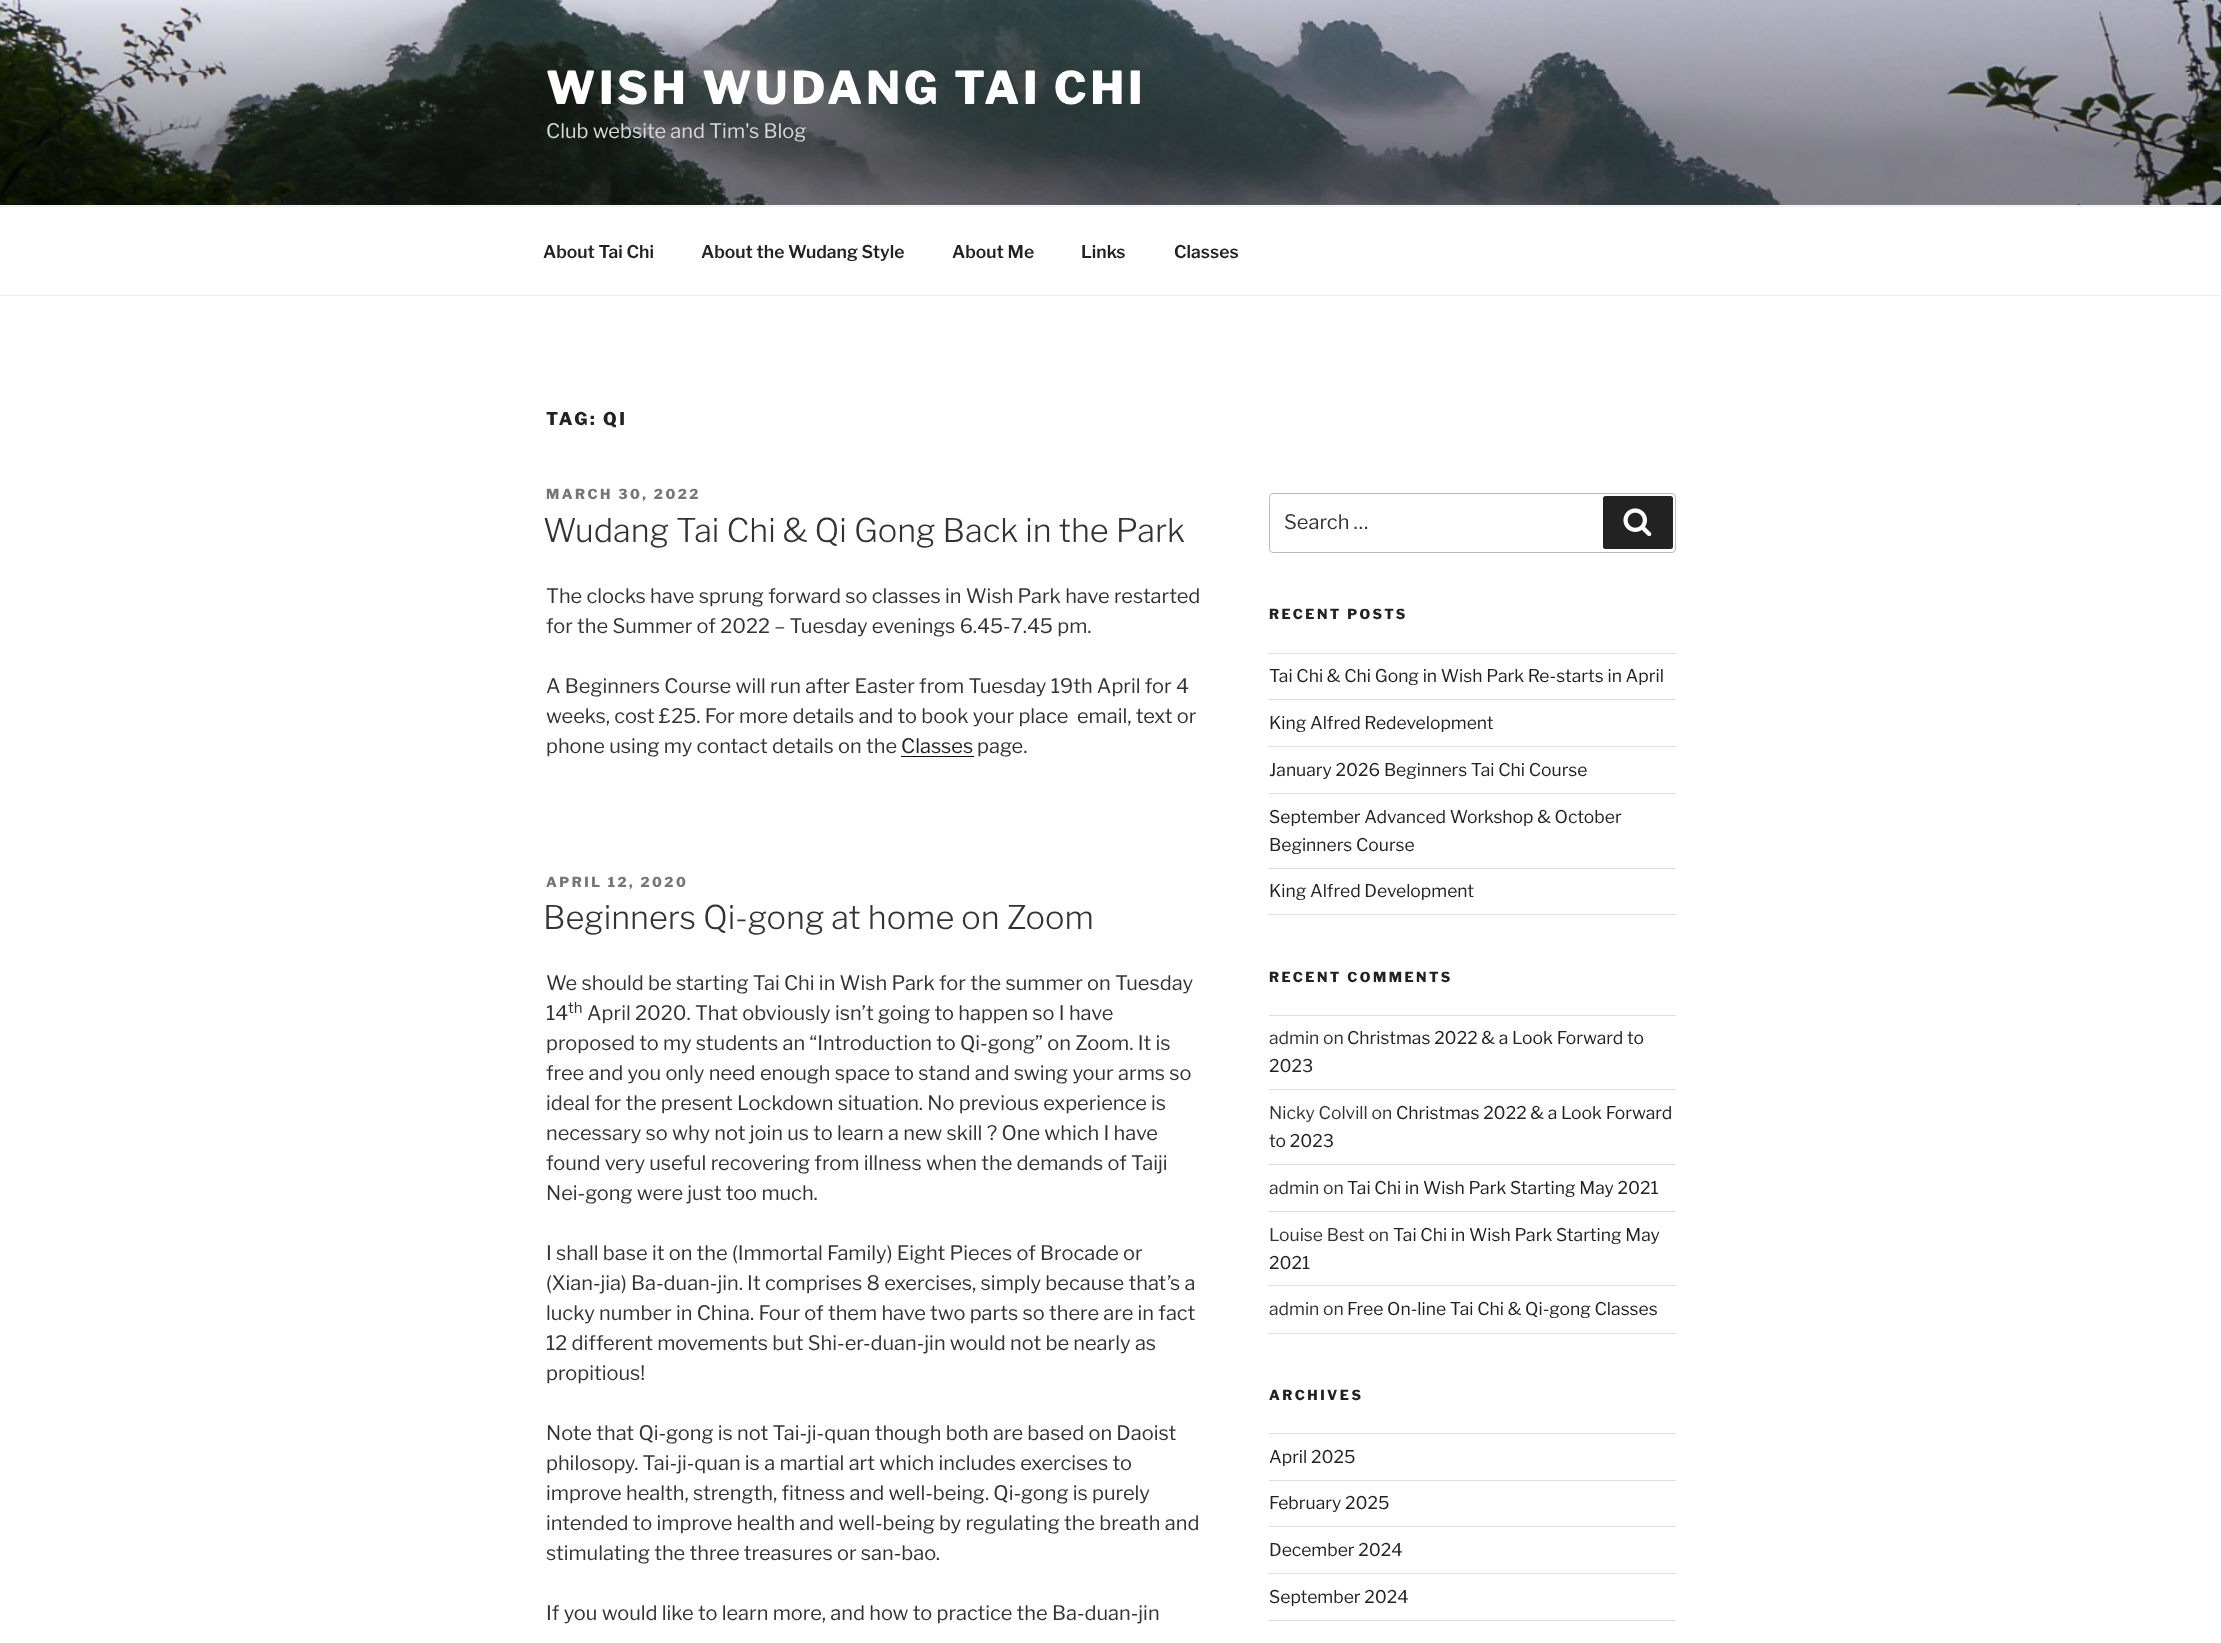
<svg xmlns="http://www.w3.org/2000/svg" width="2221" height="1643">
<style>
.a{font:100 45px Libre Franklin;letter-spacing:3.6px;fill:#fff}
.b{font:100 20px 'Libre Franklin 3';fill:#d7d8d8}
.c{font:100 17.5px 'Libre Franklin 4';fill:#222}
.d{font:100 17.5px Libre Franklin;letter-spacing:2.5px;fill:#222}
.e{font:100 13.75px Libre Franklin;letter-spacing:2.5px;fill:#767676}
.f{font:100 32.5px 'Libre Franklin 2';fill:#333}
.g{font:100 20px 'Libre Franklin 3';fill:#333}
.h{font:100 20px 'Libre Franklin 3';fill:#222}
.i{font:100 15px 'Libre Franklin 3';fill:#333}
.j{font:100 13.75px Libre Franklin;letter-spacing:2.5px;fill:#222}
.k{font:100 17.5px 'Libre Franklin 3';fill:#222}
.l{font:100 17.5px 'Libre Franklin 3';fill:#333}
</style>
<rect width="100%" height="100%" fill="#fff"/>
<path fill="#fafafa" d="M0 205h2221v1H0z"/>
<image href="1.png" x="0" y="0" width="2221" height="205"/>
<path fill="#eee" d="M0 206h2221v1H0z"/>
<path fill="#eee" d="M0 295h2221v1H0z"/>
<path fill="#0f0f0f" d="M901 756h73v1H901z"/>
<rect fill="none" stroke="#bbb" x="1269.5" y="493.5" width="406" height="59" rx="3.5"/>
<rect fill="#222" x="1603" y="496" width="70" height="53" rx="2.5"/>
<image href="2.png" x="1623" y="508" width="29" height="28"/>
<path fill="#ddd" d="M1269 653h407v1H1269z"/>
<path fill="#ddd" d="M1269 699h407v1H1269z"/>
<path fill="#ddd" d="M1269 746h407v1H1269z"/>
<path fill="#ddd" d="M1269 793h407v1H1269z"/>
<path fill="#ddd" d="M1269 868h407v1H1269z"/>
<path fill="#ddd" d="M1269 914h407v1H1269z"/>
<path fill="#ddd" d="M1269 1015h407v1H1269z"/>
<path fill="#ddd" d="M1269 1089h407v1H1269z"/>
<path fill="#ddd" d="M1269 1164h407v1H1269z"/>
<path fill="#ddd" d="M1269 1211h407v1H1269z"/>
<path fill="#ddd" d="M1269 1285h407v1H1269z"/>
<path fill="#ddd" d="M1269 1333h407v1H1269z"/>
<path fill="#ddd" d="M1269 1433h407v1H1269z"/>
<path fill="#ddd" d="M1269 1480h407v1H1269z"/>
<path fill="#ddd" d="M1269 1526h407v1H1269z"/>
<path fill="#ddd" d="M1269 1573h407v1H1269z"/>
<path fill="#ddd" d="M1269 1620h407v1H1269z"/>
<text class="a" x="546" y="104">WISH WUDANG TAI CHI</text>
<text class="b" x="546" y="138">Club website and Tim's Blog</text>
<text class="c" x="543" y="258">About Tai Chi</text>
<text class="c" x="701" y="258">About the Wudang Style</text>
<text class="c" x="952" y="258">About Me</text>
<text class="c" x="1081" y="258">Links</text>
<text class="c" x="1174" y="258">Classes</text>
<text class="d" x="546" y="425">TAG: QI</text>
<text class="e" x="546" y="499">MARCH 30, 2022</text>
<text class="f" x="543" y="542">Wudang Tai Chi &amp; Qi Gong Back in the Park</text>
<text class="g" x="546" y="603">The clocks have sprung forward so classes in Wish Park have restarted</text>
<text class="g" x="546" y="633">for the Summer of 2022 – Tuesday evenings 6.45-7.45 pm.</text>
<text class="g" x="546" y="693">A Beginners Course will run after Easter from Tuesday 19th April for 4</text>
<text class="g" xml:space="preserve" x="546" y="723">weeks, cost £25. For more details and to book your place  email, text or</text>
<text class="g" x="546" y="753">phone using my contact details on the</text>
<text class="h" x="901" y="753">Classes</text>
<text class="g" x="977" y="753">page.</text>
<text class="e" x="546" y="887">APRIL 12, 2020</text>
<text class="f" x="543" y="929">Beginners Qi-gong at home on Zoom</text>
<text class="g" x="546" y="990">We should be starting Tai Chi in Wish Park for the summer on Tuesday</text>
<text class="g" x="546" y="1020">14</text>
<text class="i" x="568" y="1013">th</text>
<text class="g" x="587" y="1020">April 2020. That obviously isn’t going to happen so I have</text>
<text class="g" x="546" y="1050">proposed to my students an “Introduction to Qi-gong” on Zoom. It is</text>
<text class="g" x="546" y="1080">free and you only need enough space to stand and swing your arms so</text>
<text class="g" x="546" y="1110">ideal for the present Lockdown situation. No previous experience is</text>
<text class="g" x="546" y="1140">necessary so why not join us to learn a new skill ? One which I have</text>
<text class="g" x="546" y="1170">found very useful recovering from illness when the demands of Taiji</text>
<text class="g" x="546" y="1200">Nei-gong were just too much.</text>
<text class="g" x="546" y="1260">I shall base it on the (Immortal Family) Eight Pieces of Brocade or</text>
<text class="g" x="546" y="1290">(Xian-jia) Ba-duan-jin. It comprises 8 exercises, simply because that’s a</text>
<text class="g" x="546" y="1320">lucky number in China. Four of them have two parts so there are in fact</text>
<text class="g" x="546" y="1350">12 different movements but Shi-er-duan-jin would not be nearly as</text>
<text class="g" x="546" y="1380">propitious!</text>
<text class="g" x="546" y="1440">Note that Qi-gong is not Tai-ji-quan though both are based on Daoist</text>
<text class="g" x="546" y="1470">philosopy. Tai-ji-quan is a martial art which includes exercises to</text>
<text class="g" x="546" y="1500">improve health, strength, fitness and well-being. Qi-gong is purely</text>
<text class="g" x="546" y="1530">intended to improve health and well-being by regulating the breath and</text>
<text class="g" x="546" y="1560">stimulating the three treasures or san-bao.</text>
<text class="g" x="546" y="1620">If you would like to learn more, and how to practice the Ba-duan-jin</text>
<text class="g" x="1284" y="529">Search …</text>
<text class="j" x="1269" y="619">RECENT POSTS</text>
<text class="k" x="1269" y="682">Tai Chi &amp; Chi Gong in Wish Park Re-starts in April</text>
<text class="k" x="1269" y="729">King Alfred Redevelopment</text>
<text class="k" x="1269" y="776">January 2026 Beginners Tai Chi Course</text>
<text class="k" x="1269" y="823">September Advanced Workshop &amp; October</text>
<text class="k" x="1269" y="851">Beginners Course</text>
<text class="k" x="1269" y="897">King Alfred Development</text>
<text class="j" x="1269" y="982">RECENT COMMENTS</text>
<text class="l" x="1269" y="1044">admin on</text>
<text class="k" x="1347" y="1044">Christmas 2022 &amp; a Look Forward to</text>
<text class="k" x="1269" y="1072">2023</text>
<text class="l" x="1269" y="1119">Nicky Colvill on</text>
<text class="k" x="1396" y="1119">Christmas 2022 &amp; a Look Forward</text>
<text class="k" x="1269" y="1147">to 2023</text>
<text class="l" x="1269" y="1194">admin on</text>
<text class="k" x="1347" y="1194">Tai Chi in Wish Park Starting May 2021</text>
<text class="l" x="1269" y="1241">Louise Best on</text>
<text class="k" x="1393" y="1241">Tai Chi in Wish Park Starting May</text>
<text class="k" x="1269" y="1269">2021</text>
<text class="l" x="1269" y="1315">admin on</text>
<text class="k" x="1347" y="1315">Free On-line Tai Chi &amp; Qi-gong Classes</text>
<text class="j" x="1269" y="1400">ARCHIVES</text>
<text class="k" x="1269" y="1463">April 2025</text>
<text class="k" x="1269" y="1509">February 2025</text>
<text class="k" x="1269" y="1556">December 2024</text>
<text class="k" x="1269" y="1603">September 2024</text>
</svg>
